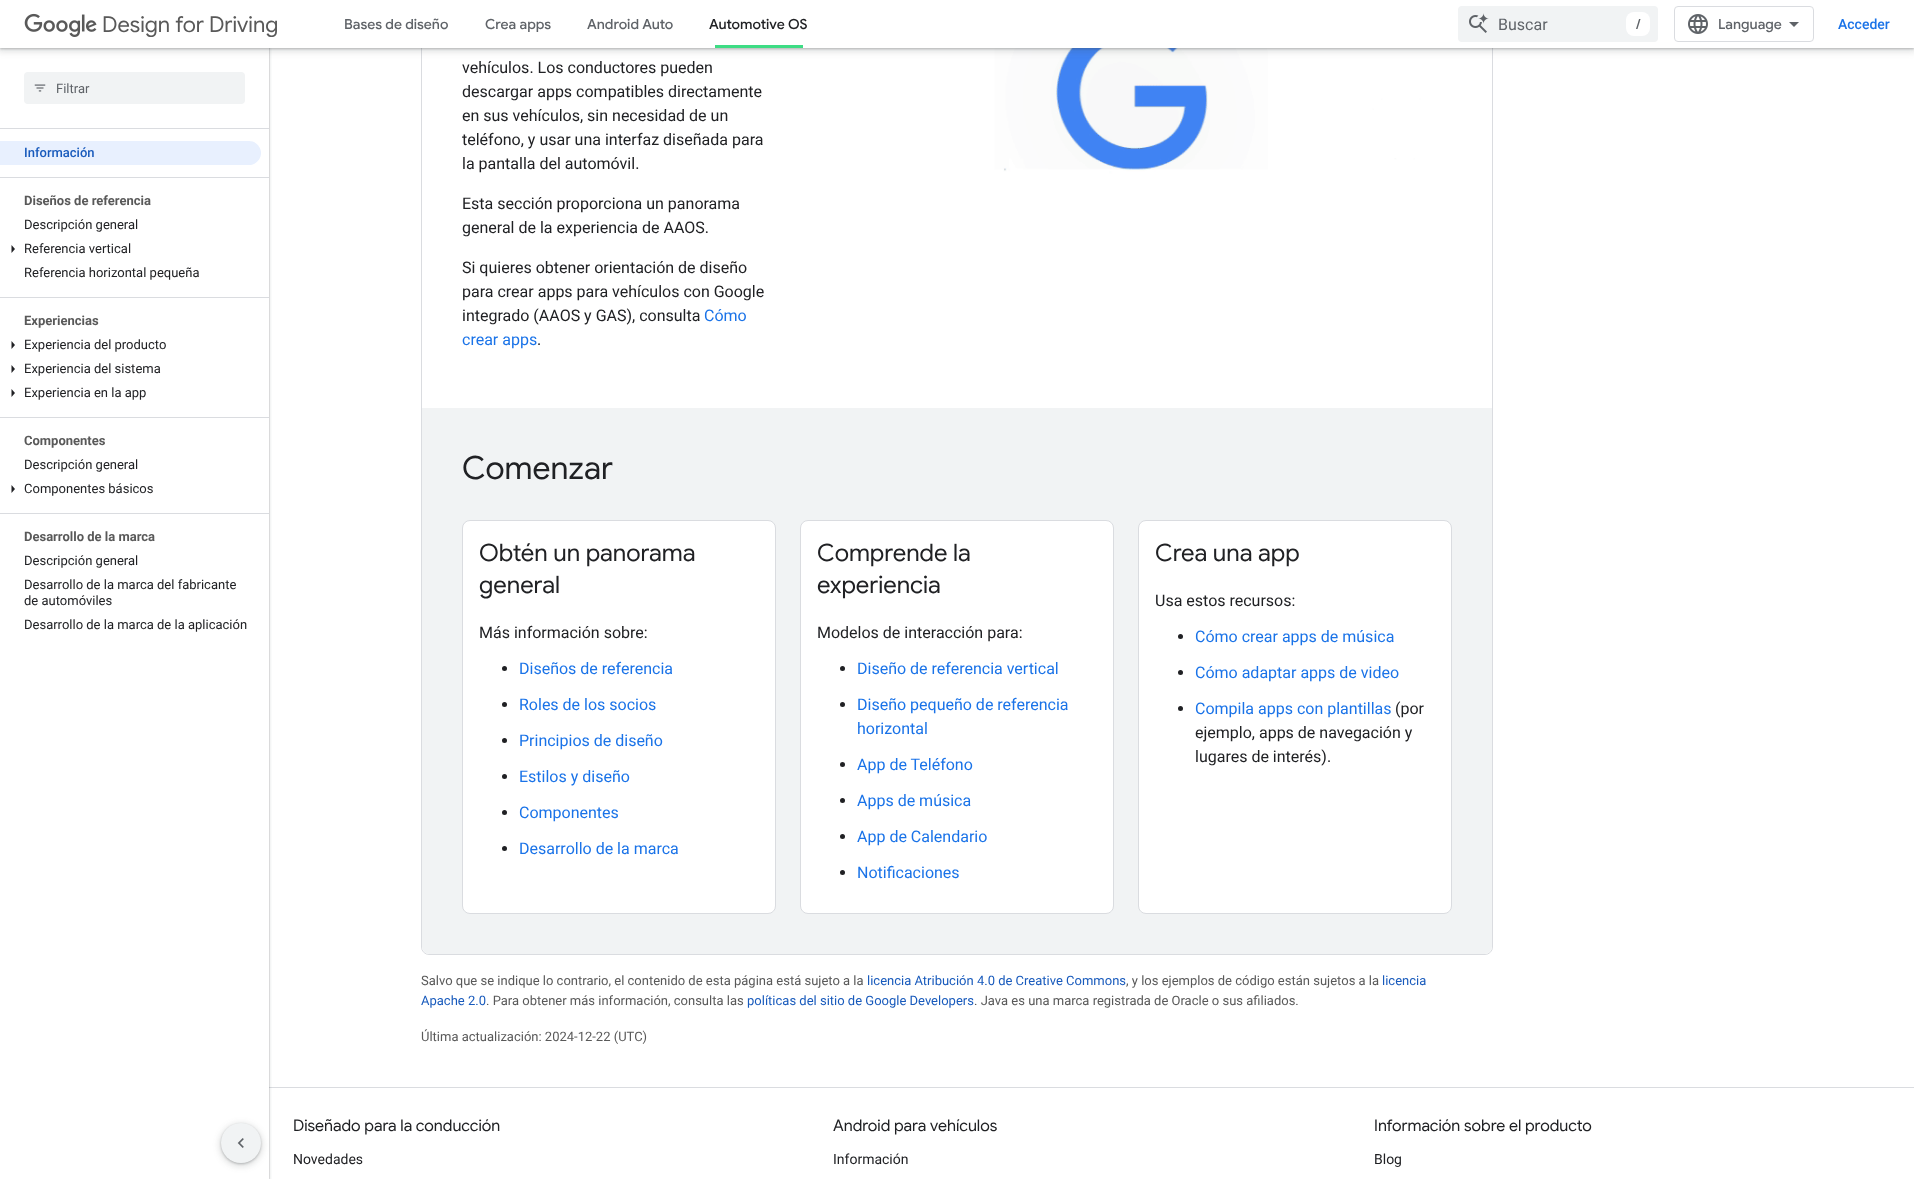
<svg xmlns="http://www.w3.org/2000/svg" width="1914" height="1179">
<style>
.a{font:22px Google Sans;fill:#595959}
.b{font:500 14px Google Sans;fill:#5f6368}
.c{font:500 14px Google Sans;fill:#202124}
.d{font:16px Roboto;fill:#5f6368}
.e{font:500 14px Roboto;fill:#1a73e8}
.f{font:13px Roboto;fill:#5f6368}
.g{font:500 13px Roboto;fill:#185abc}
.h{font:bold 13px Roboto;fill:#595959}
.i{font:13px Roboto;fill:#202124}
.j{font:16px Roboto;fill:#202124}
.k{font:16px Roboto;fill:#1a73e8}
.l{font:32px Google Sans;fill:#202124}
.m{font:24px Google Sans;fill:#202124}
.n{font:13px Roboto;fill:#595959}
.o{font:13px Roboto;fill:#185abc}
.p{font:16px Google Sans;fill:#202124}
.q{font:14px Roboto;fill:#202124}
</style>
<defs>
<clipPath id="clip1"><path d="M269 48h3v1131H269z"/></clipPath>
<clipPath id="clip2"><path d="M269 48h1v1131H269z"/></clipPath>
</defs>
<rect width="100%" height="100%" fill="#fff"/>
<path fill="#dadce0" d="M269 1087h1645v1H269z"/>
<g clip-path="url(#clip1)">
<path fill="#3c404326" filter="blur(1.5px)" d="M-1 0h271v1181H-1z"/>
</g>
<g clip-path="url(#clip2)">
<path fill="#3c40434d" filter="blur(1px)" d="M0 1h269v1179H0z"/>
</g>
<rect fill="none" stroke="#dadce0" x="421.5" y="-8.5" width="1071" height="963" rx="7.5"/>
<image href="5.png" x="800" y="48" width="652" height="207"/>
<path fill="#3c404326" filter="blur(3px)" d="M-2 -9h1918v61H-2z"/>
<path fill="#3c40434d" filter="blur(1px)" d="M0 -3h1914v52H0z"/>
<path fill="#fff" d="M0 0h1914v48H0z"/>
<image href="1.png" x="24" y="13" width="73" height="24"/>
<path fill="#3ddc84" d="M715 45h88v3H715z"/>
<rect fill="#f1f3f4" x="1458" y="6" width="200" height="36" rx="4"/>
<image href="2.png" x="1469" y="13" width="20" height="20"/>
<rect fill="#fff" x="1626" y="12" width="24" height="24" rx="8"/>
<rect fill="none" stroke="#dadce0" x="1674.5" y="6.5" width="139" height="35" rx="3.5"/>
<image href="3.png" x="1688" y="14" width="20" height="20"/>
<path fill="#5f6368" d="M1794 27l-5-5h10z"/>
<path fill="#dadce0" d="M0 128h269v1H0z"/>
<rect fill="#f1f3f4" x="24" y="72" width="221" height="32" rx="4"/>
<image href="4.png" x="34" y="84" width="12" height="8"/>
<path fill="#e8f0fe" d="M0 141h249c6.5 0 12 5.5 12 12c0 6.5-5.5 12-12 12h-249z"/>
<path fill="#dadce0" d="M0 177h269v1H0z"/>
<path fill="#202124" d="M11.5 253v-8l3.5 4z"/>
<path fill="#dadce0" d="M0 297h269v1H0z"/>
<path fill="#202124" d="M11.5 349v-8l3.5 4z"/>
<path fill="#202124" d="M11.5 373v-8l3.5 4z"/>
<path fill="#202124" d="M11.5 397v-8l3.5 4z"/>
<path fill="#dadce0" d="M0 417h269v1H0z"/>
<path fill="#202124" d="M11.5 493v-8l3.5 4z"/>
<path fill="#dadce0" d="M0 513h269v1H0z"/>
<path fill="#f1f3f4" d="M422 408h1070v538c0 4.5-3.5 8-8 8h-1054c-4.5 0-8-3.5-8-8z"/>
<rect fill="#fff" stroke="#dadce0" x="462.5" y="520.5" width="313" height="393" rx="7.5"/>
<circle fill="#202124" cx="504.5" cy="668.5" r="2.5"/>
<circle fill="#202124" cx="504.5" cy="704.5" r="2.5"/>
<circle fill="#202124" cx="504.5" cy="740.5" r="2.5"/>
<circle fill="#202124" cx="504.5" cy="776.5" r="2.5"/>
<circle fill="#202124" cx="504.5" cy="812.5" r="2.5"/>
<circle fill="#202124" cx="504.5" cy="848.5" r="2.5"/>
<rect fill="#fff" stroke="#dadce0" x="800.5" y="520.5" width="313" height="393" rx="7.5"/>
<circle fill="#202124" cx="842.5" cy="668.5" r="2.5"/>
<circle fill="#202124" cx="842.5" cy="704.5" r="2.5"/>
<circle fill="#202124" cx="842.5" cy="764.5" r="2.5"/>
<circle fill="#202124" cx="842.5" cy="800.5" r="2.5"/>
<circle fill="#202124" cx="842.5" cy="836.5" r="2.5"/>
<circle fill="#202124" cx="842.5" cy="872.5" r="2.5"/>
<rect fill="#fff" stroke="#dadce0" x="1138.5" y="520.5" width="313" height="393" rx="7.5"/>
<circle fill="#202124" cx="1180.5" cy="636.5" r="2.5"/>
<circle fill="#202124" cx="1180.5" cy="672.5" r="2.5"/>
<circle fill="#202124" cx="1180.5" cy="708.5" r="2.5"/>
<rect fill="#3c404326" filter="blur(3px)" x="219" y="1123" width="44" height="44" rx="22"/>
<rect fill="#3c40434d" filter="blur(1px)" x="221" y="1124" width="40" height="40" rx="20"/>
<circle fill="#f1f3f4" cx="241" cy="1143" r="20"/>
<image href="6.png" x="237" y="1138" width="7" height="10"/>
<text class="a" x="102" y="32">Design for Driving</text>
<text class="b" x="344" y="29">Bases de diseño</text>
<text class="b" x="485" y="29">Crea apps</text>
<text class="b" x="587" y="29">Android Auto</text>
<text class="c" x="709" y="29">Automotive OS</text>
<text class="d" x="1498" y="30">Buscar</text>
<text class="b" x="1636" y="29">/</text>
<text class="b" x="1718" y="29">Language</text>
<text class="e" x="1838" y="29">Acceder</text>
<text class="f" x="56" y="93">Filtrar</text>
<text class="g" x="24" y="157">Información</text>
<text class="h" x="24" y="205">Diseños de referencia</text>
<text class="i" x="24" y="229">Descripción general</text>
<text class="i" x="24" y="253">Referencia vertical</text>
<text class="i" x="24" y="277">Referencia horizontal pequeña</text>
<text class="h" x="24" y="325">Experiencias</text>
<text class="i" x="24" y="349">Experiencia del producto</text>
<text class="i" x="24" y="373">Experiencia del sistema</text>
<text class="i" x="24" y="397">Experiencia en la app</text>
<text class="h" x="24" y="445">Componentes</text>
<text class="i" x="24" y="469">Descripción general</text>
<text class="i" x="24" y="493">Componentes básicos</text>
<text class="h" x="24" y="541">Desarrollo de la marca</text>
<text class="i" x="24" y="565">Descripción general</text>
<text class="i" x="24" y="589">Desarrollo de la marca del fabricante</text>
<text class="i" x="24" y="605">de automóviles</text>
<text class="i" x="24" y="629">Desarrollo de la marca de la aplicación</text>
<text class="j" x="462" y="73">vehículos. Los conductores pueden</text>
<text class="j" x="462" y="97">descargar apps compatibles directamente</text>
<text class="j" x="462" y="121">en sus vehículos, sin necesidad de un</text>
<text class="j" x="462" y="145">teléfono, y usar una interfaz diseñada para</text>
<text class="j" x="462" y="169">la pantalla del automóvil.</text>
<text class="j" x="462" y="209">Esta sección proporciona un panorama</text>
<text class="j" x="462" y="233">general de la experiencia de AAOS.</text>
<text class="j" x="462" y="273">Si quieres obtener orientación de diseño</text>
<text class="j" x="462" y="297">para crear apps para vehículos con Google</text>
<text class="j" x="462" y="321">integrado (AAOS y GAS), consulta</text>
<text class="k" x="704" y="321">Cómo</text>
<text class="k" x="462" y="345">crear apps</text>
<text class="j" x="537" y="345">.</text>
<text class="l" x="462" y="479">Comenzar</text>
<text class="m" x="479" y="561">Obtén un panorama</text>
<text class="m" x="479" y="593">general</text>
<text class="j" x="479" y="638">Más información sobre:</text>
<text class="k" x="519" y="674">Diseños de referencia</text>
<text class="k" x="519" y="710">Roles de los socios</text>
<text class="k" x="519" y="746">Principios de diseño</text>
<text class="k" x="519" y="782">Estilos y diseño</text>
<text class="k" x="519" y="818">Componentes</text>
<text class="k" x="519" y="854">Desarrollo de la marca</text>
<text class="m" x="817" y="561">Comprende la</text>
<text class="m" x="817" y="593">experiencia</text>
<text class="j" x="817" y="638">Modelos de interacción para:</text>
<text class="k" x="857" y="674">Diseño de referencia vertical</text>
<text class="k" x="857" y="710">Diseño pequeño de referencia</text>
<text class="k" x="857" y="734">horizontal</text>
<text class="k" x="857" y="770">App de Teléfono</text>
<text class="k" x="857" y="806">Apps de música</text>
<text class="k" x="857" y="842">App de Calendario</text>
<text class="k" x="857" y="878">Notificaciones</text>
<text class="m" x="1155" y="561">Crea una app</text>
<text class="j" x="1155" y="606">Usa estos recursos:</text>
<text class="k" x="1195" y="642">Cómo crear apps de música</text>
<text class="k" x="1195" y="678">Cómo adaptar apps de video</text>
<text class="k" x="1195" y="714">Compila apps con plantillas</text>
<text class="j" x="1395" y="714">(por</text>
<text class="j" x="1195" y="738">ejemplo, apps de navegación y</text>
<text class="j" x="1195" y="762">lugares de interés).</text>
<text class="n" x="421" y="985">Salvo que se indique lo contrario, el contenido de esta página está sujeto a la</text>
<text class="o" x="867" y="985">licencia Atribución 4.0 de Creative Commons</text>
<text class="n" x="1126" y="985">, y los ejemplos de código están sujetos a la</text>
<text class="o" x="1382" y="985">licencia</text>
<text class="o" x="421" y="1005">Apache 2.0</text>
<text class="n" x="486" y="1005">. Para obtener más información, consulta las</text>
<text class="o" x="747" y="1005">políticas del sitio de Google Developers</text>
<text class="n" x="974" y="1005">. Java es una marca registrada de Oracle o sus afiliados.</text>
<text class="n" x="421" y="1041">Última actualización: 2024-12-22 (UTC)</text>
<text class="p" x="293" y="1131">Diseñado para la conducción</text>
<text class="q" x="293" y="1164">Novedades</text>
<text class="p" x="833" y="1131">Android para vehículos</text>
<text class="q" x="833" y="1164">Información</text>
<text class="p" x="1374" y="1131">Información sobre el producto</text>
<text class="q" x="1374" y="1164">Blog</text>
</svg>
